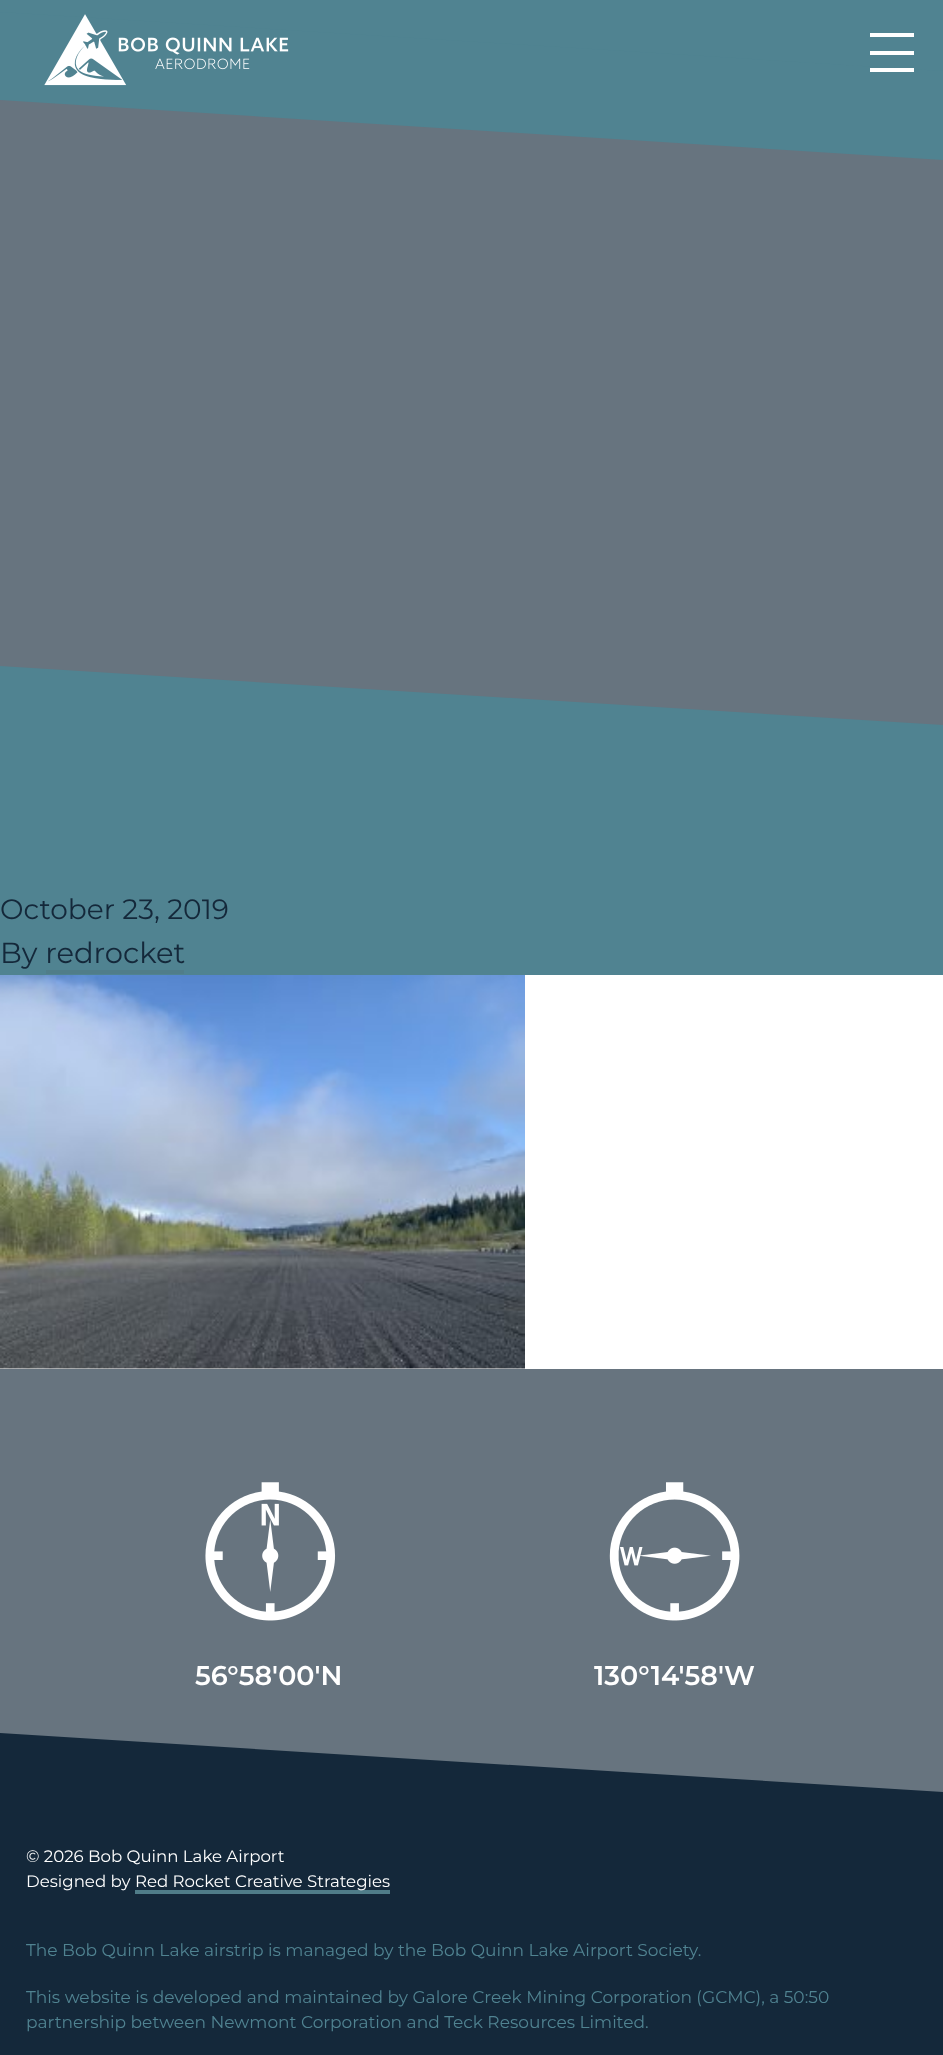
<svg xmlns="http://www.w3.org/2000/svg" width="943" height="2055">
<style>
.a{font:28px Montserrat;fill:#14283a}
.b{font:29px Montserrat;fill:#14283a}
.c{font:600 27px Montserrat;fill:#fff}
.d{font:16.6px Montserrat;fill:#fff}
.e{font:17.05px Montserrat;fill:#508391}
</style>
<defs>
<clipPath id="clip1"><path d="M0 0h943v753H0z"/></clipPath>
</defs>
<rect width="100%" height="100%" fill="#fff"/>
<path fill="#508391" d="M0 0h943v71H0z"/>
<path fill="#67747f" d="M0 100h943v625H0z"/>
<path fill="#508391" d="M0 12l943 59v89l-943-60z"/>
<image href="1.png" x="44" y="14" width="245" height="72"/>
<path fill="#fff" d="M870 33h44v4H870z"/>
<path fill="#fff" d="M870 51h44v4H870z"/>
<path fill="#fff" d="M870 68h44v4H870z"/>
<g clip-path="url(#clip1)">
<path fill="#508391" d="M0 666l943 59v89l-943-60z"/>
</g>
<path fill="#508391" d="M0 753h943v222H0z"/>
<path fill="#507d89" d="M46 970h138v4H46z"/>
<image href="2.png" x="0" y="975" width="525" height="394"/>
<path fill="#67747f" d="M0 1369h943v423H0z"/>
<image href="3.png" x="205" y="1482" width="131" height="139"/>
<image href="4.png" x="609" y="1482" width="131" height="139"/>
<path fill="#14283a" d="M0 1733l943 59v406l-943-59z"/>
<path fill="#507d89" d="M135 1890h255v4H135z"/>
<text class="a" x="0" y="919">October 23, 2019</text>
<text class="b" x="0" y="963">By redrocket</text>
<text class="c" x="195" y="1685">56°58'00'N</text>
<text class="c" x="594" y="1685">130°14'58'W</text>
<text class="d" x="26" y="1862">© 2026 Bob Quinn Lake Airport</text>
<text class="d" x="26" y="1887">Designed by</text>
<text class="d" x="135" y="1887">Red Rocket Creative Strategies</text>
<text class="e" x="26" y="1956">The Bob Quinn Lake airstrip is managed by the Bob Quinn Lake Airport Society.</text>
<text class="e" x="26" y="2003">This website is developed and maintained by Galore Creek Mining Corporation (GCMC), a 50:50</text>
<text class="e" x="26" y="2028">partnership between Newmont Corporation and Teck Resources Limited.</text>
</svg>
